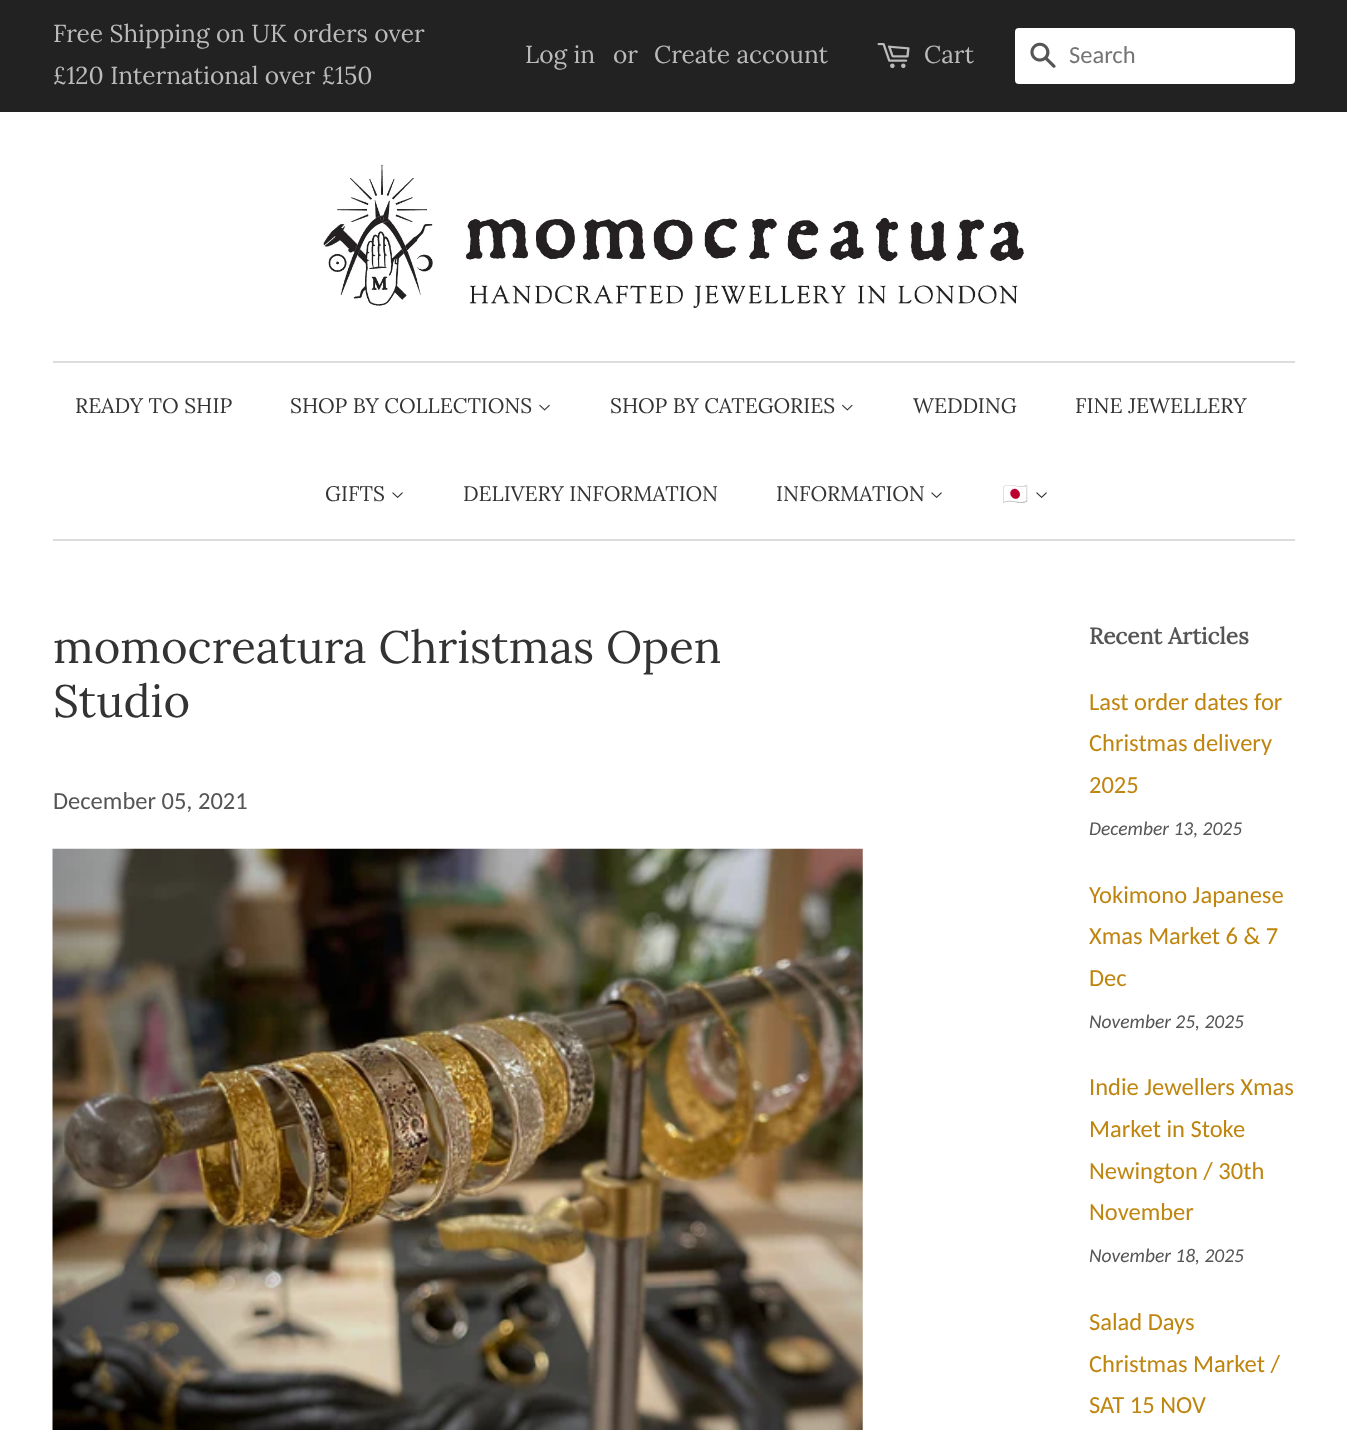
<svg xmlns="http://www.w3.org/2000/svg" width="1347" height="1430">
<style>
.a{font:24.5px Lora;fill:#bbb}
.b{font:24.5px Carlito;fill:#757575}
.c{font:21px Lora;fill:#333}
.d{font:21px Noto Color Emoji;fill:#333}
.e{font:45.5px Lora;fill:#333}
.f{font:24.5px Carlito;fill:#555}
.g{font:bold 22.75px Lora;fill:#555}
.h{font:24.5px Carlito;fill:#bf850e}
.i{font:italic 19.5px Carlito;fill:#555}
</style>
<rect width="100%" height="100%" fill="#fff"/>
<path fill="#222" d="M0 0h1347v112H0z"/>
<image href="1.png" x="877" y="43" width="33" height="26"/>
<rect fill="#fff" x="1015" y="28" width="280" height="56" rx="4"/>
<image href="2.png" x="1030" y="42" width="26" height="26"/>
<image href="3.png" x="323" y="164" width="701" height="144"/>
<path fill="#ddd" d="M53 361h1242v2H53z"/>
<path fill="#ddd" d="M53 539h1242v2H53z"/>
<image href="4.png" x="539" y="404" width="11" height="7"/>
<image href="5.png" x="842" y="404" width="11" height="7"/>
<image href="6.png" x="392" y="492" width="11" height="6"/>
<image href="6.png" x="931" y="492" width="11" height="6"/>
<image href="6.png" x="1036" y="492" width="11" height="6"/>
<image href="7.png" x="52" y="848" width="811" height="582"/>
<text class="a" x="53" y="42">Free Shipping on UK orders over</text>
<text class="a" x="53" y="84">£120 International over £150</text>
<text class="a" x="525" y="63">Log in</text>
<text class="a" x="613" y="63">or</text>
<text class="a" x="654" y="63">Create account</text>
<text class="a" x="924" y="63">Cart</text>
<text class="b" x="1069" y="63">Search</text>
<text class="c" x="75" y="413">READY TO SHIP</text>
<text class="c" x="290" y="413">SHOP BY COLLECTIONS</text>
<text class="c" x="610" y="413">SHOP BY CATEGORIES</text>
<text class="c" x="913" y="413">WEDDING</text>
<text class="c" x="1075" y="413">FINE JEWELLERY</text>
<text class="c" x="325" y="501">GIFTS</text>
<text class="c" x="463" y="501">DELIVERY INFORMATION</text>
<text class="c" x="776" y="501">INFORMATION</text>
<text class="d" x="1002" y="501">🇯🇵</text>
<text class="e" x="53" y="663">momocreatura Christmas Open</text>
<text class="e" x="53" y="717">Studio</text>
<text class="f" x="53" y="809">December 05, 2021</text>
<text class="g" x="1089" y="644">Recent Articles</text>
<text class="h" x="1089" y="710">Last order dates for</text>
<text class="h" x="1089" y="751">Christmas delivery</text>
<text class="h" x="1089" y="793">2025</text>
<text class="i" x="1089" y="835">December 13, 2025</text>
<text class="h" x="1089" y="903">Yokimono Japanese</text>
<text class="h" x="1089" y="944">Xmas Market 6 &amp; 7</text>
<text class="h" x="1089" y="986">Dec</text>
<text class="i" x="1089" y="1028">November 25, 2025</text>
<text class="h" x="1089" y="1095">Indie Jewellers Xmas</text>
<text class="h" x="1089" y="1137">Market in Stoke</text>
<text class="h" x="1089" y="1179">Newington / 30th</text>
<text class="h" x="1089" y="1220">November</text>
<text class="i" x="1089" y="1262">November 18, 2025</text>
<text class="h" x="1089" y="1330">Salad Days</text>
<text class="h" x="1089" y="1372">Christmas Market /</text>
<text class="h" x="1089" y="1413">SAT 15 NOV</text>
</svg>
